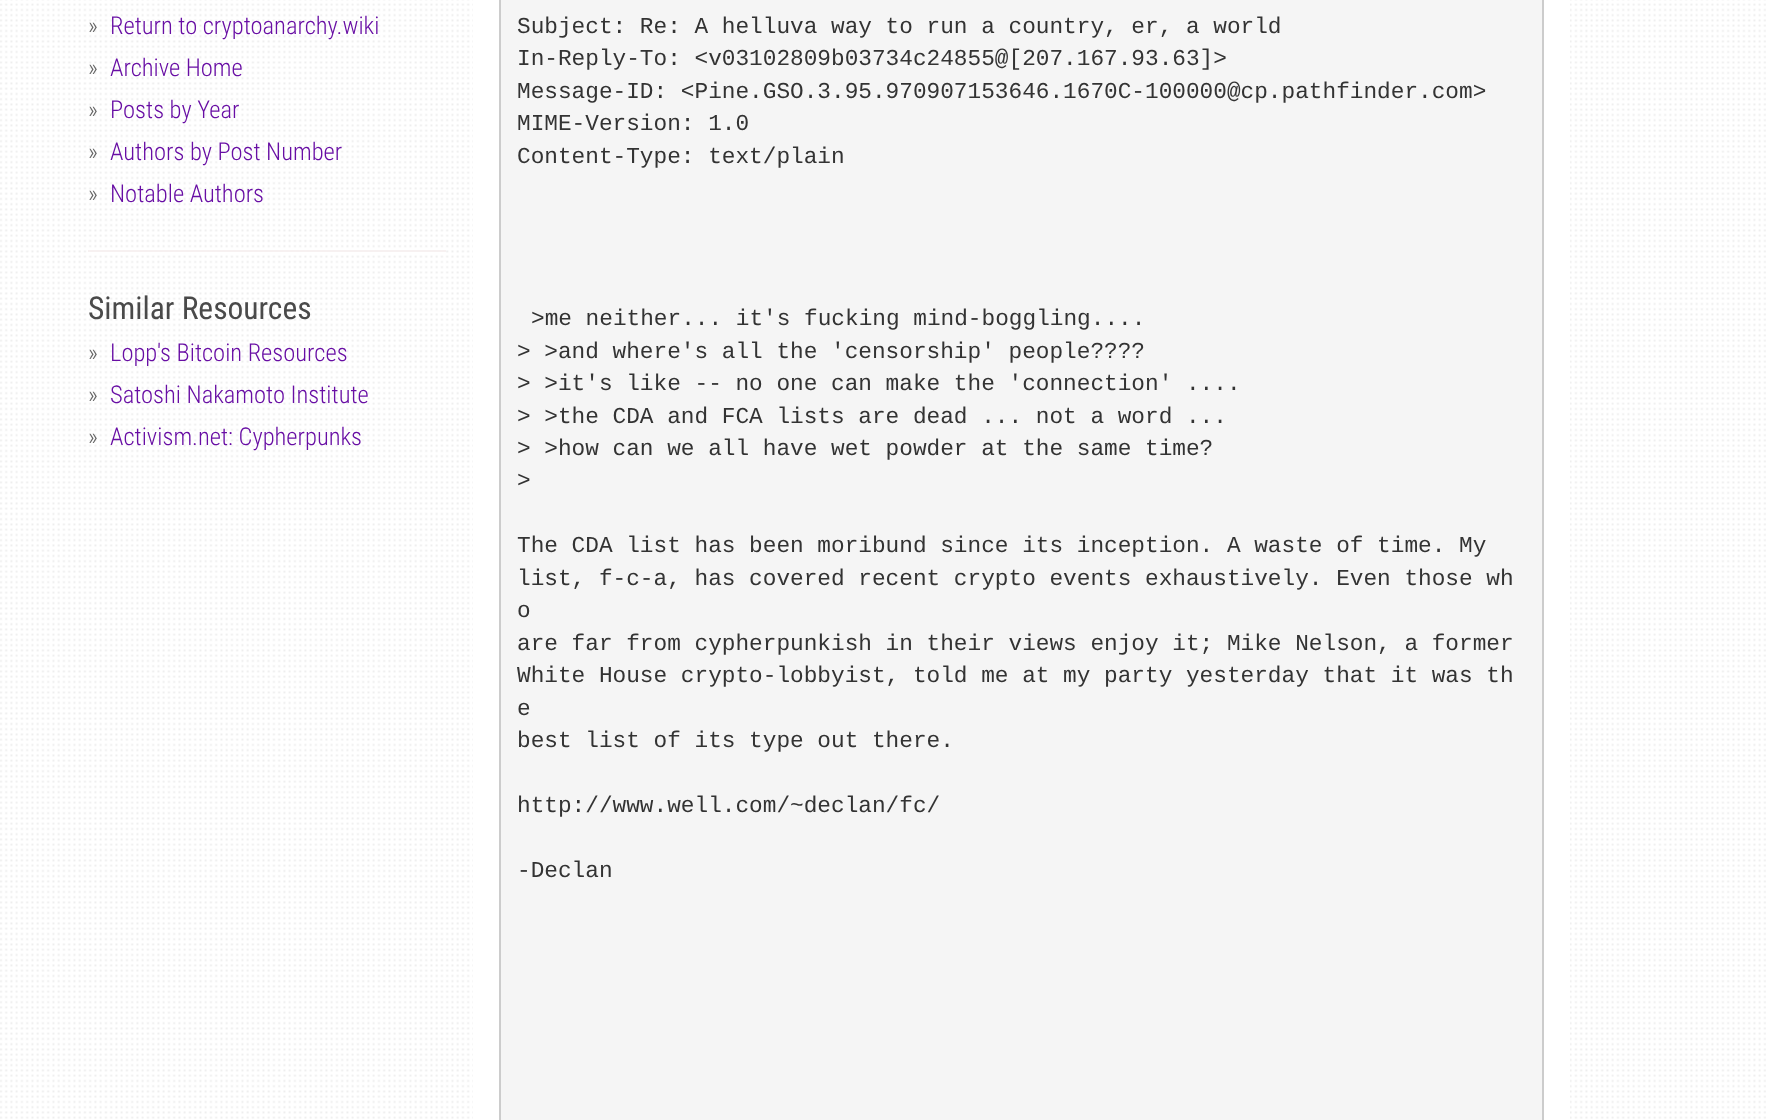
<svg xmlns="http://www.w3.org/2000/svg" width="1767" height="1120">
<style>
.a{font:300 24.5px Roboto Condensed;fill:#666}
.b{font:300 24.5px Roboto Condensed;fill:#680ea4}
.c{font:31.5px Roboto Condensed;fill:#4a4a4a}
.d{font:22.75px Liberation Mono;fill:#333}
</style>
<rect width="100%" height="100%" fill="#fff"/>
<image href="1.png" x="0" y="0" width="1766" height="1119"/>
<path fill="#f7f1f1" d="M88 250h358v2H88z"/>
<path fill="#fff" d="M88 252h358v1H88z"/>
<path fill="#fff" d="M473 0h1097v1119H473z"/>
<path fill="#f5f5f5" stroke="#ccc" stroke-width="2" d="M500 -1h1043v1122H500z"/>
<text class="a" x="88" y="34">»</text>
<text class="b" x="110" y="34">Return to cryptoanarchy.wiki</text>
<text class="a" x="88" y="76">»</text>
<text class="b" x="110" y="76">Archive Home</text>
<text class="a" x="88" y="118">»</text>
<text class="b" x="110" y="118">Posts by Year</text>
<text class="a" x="88" y="160">»</text>
<text class="b" x="110" y="160">Authors by Post Number</text>
<text class="a" x="88" y="202">»</text>
<text class="b" x="110" y="202">Notable Authors</text>
<text class="c" x="88" y="319">Similar Resources</text>
<text class="a" x="88" y="361">»</text>
<text class="b" x="110" y="361">Lopp's Bitcoin Resources</text>
<text class="a" x="88" y="403">»</text>
<text class="b" x="110" y="403">Satoshi Nakamoto Institute</text>
<text class="a" x="88" y="445">»</text>
<text class="b" x="110" y="445">Activism.net: Cypherpunks</text>
<text class="d" x="517" y="33">Subject: Re: A helluva way to run a country, er, a world</text>
<text class="d" x="517" y="65">In-Reply-To: &lt;v03102809b03734c24855@[207.167.93.63]&gt;</text>
<text class="d" x="517" y="98">Message-ID: &lt;Pine.GSO.3.95.970907153646.1670C-100000@cp.pathfinder.com&gt;</text>
<text class="d" x="517" y="130">MIME-Version: 1.0</text>
<text class="d" x="517" y="163">Content-Type: text/plain</text>
<text class="d" x="531" y="325">&gt;me neither... it's fucking mind-boggling....</text>
<text class="d" x="517" y="358">&gt; &gt;and where's all the 'censorship' people????</text>
<text class="d" x="517" y="390">&gt; &gt;it's like -- no one can make the 'connection' ....</text>
<text class="d" x="517" y="423">&gt; &gt;the CDA and FCA lists are dead ... not a word ...</text>
<text class="d" x="517" y="455">&gt; &gt;how can we all have wet powder at the same time?</text>
<text class="d" x="517" y="487">&gt;</text>
<text class="d" x="517" y="552">The CDA list has been moribund since its inception. A waste of time. My</text>
<text class="d" x="517" y="585">list, f-c-a, has covered recent crypto events exhaustively. Even those wh</text>
<text class="d" x="517" y="617">o</text>
<text class="d" x="517" y="650">are far from cypherpunkish in their views enjoy it; Mike Nelson, a former</text>
<text class="d" x="517" y="682">White House crypto-lobbyist, told me at my party yesterday that it was th</text>
<text class="d" x="517" y="715">e</text>
<text class="d" x="517" y="747">best list of its type out there.</text>
<text class="d" x="517" y="812">http://www.well.com/~declan/fc/</text>
<text class="d" x="517" y="877">-Declan</text>
</svg>
